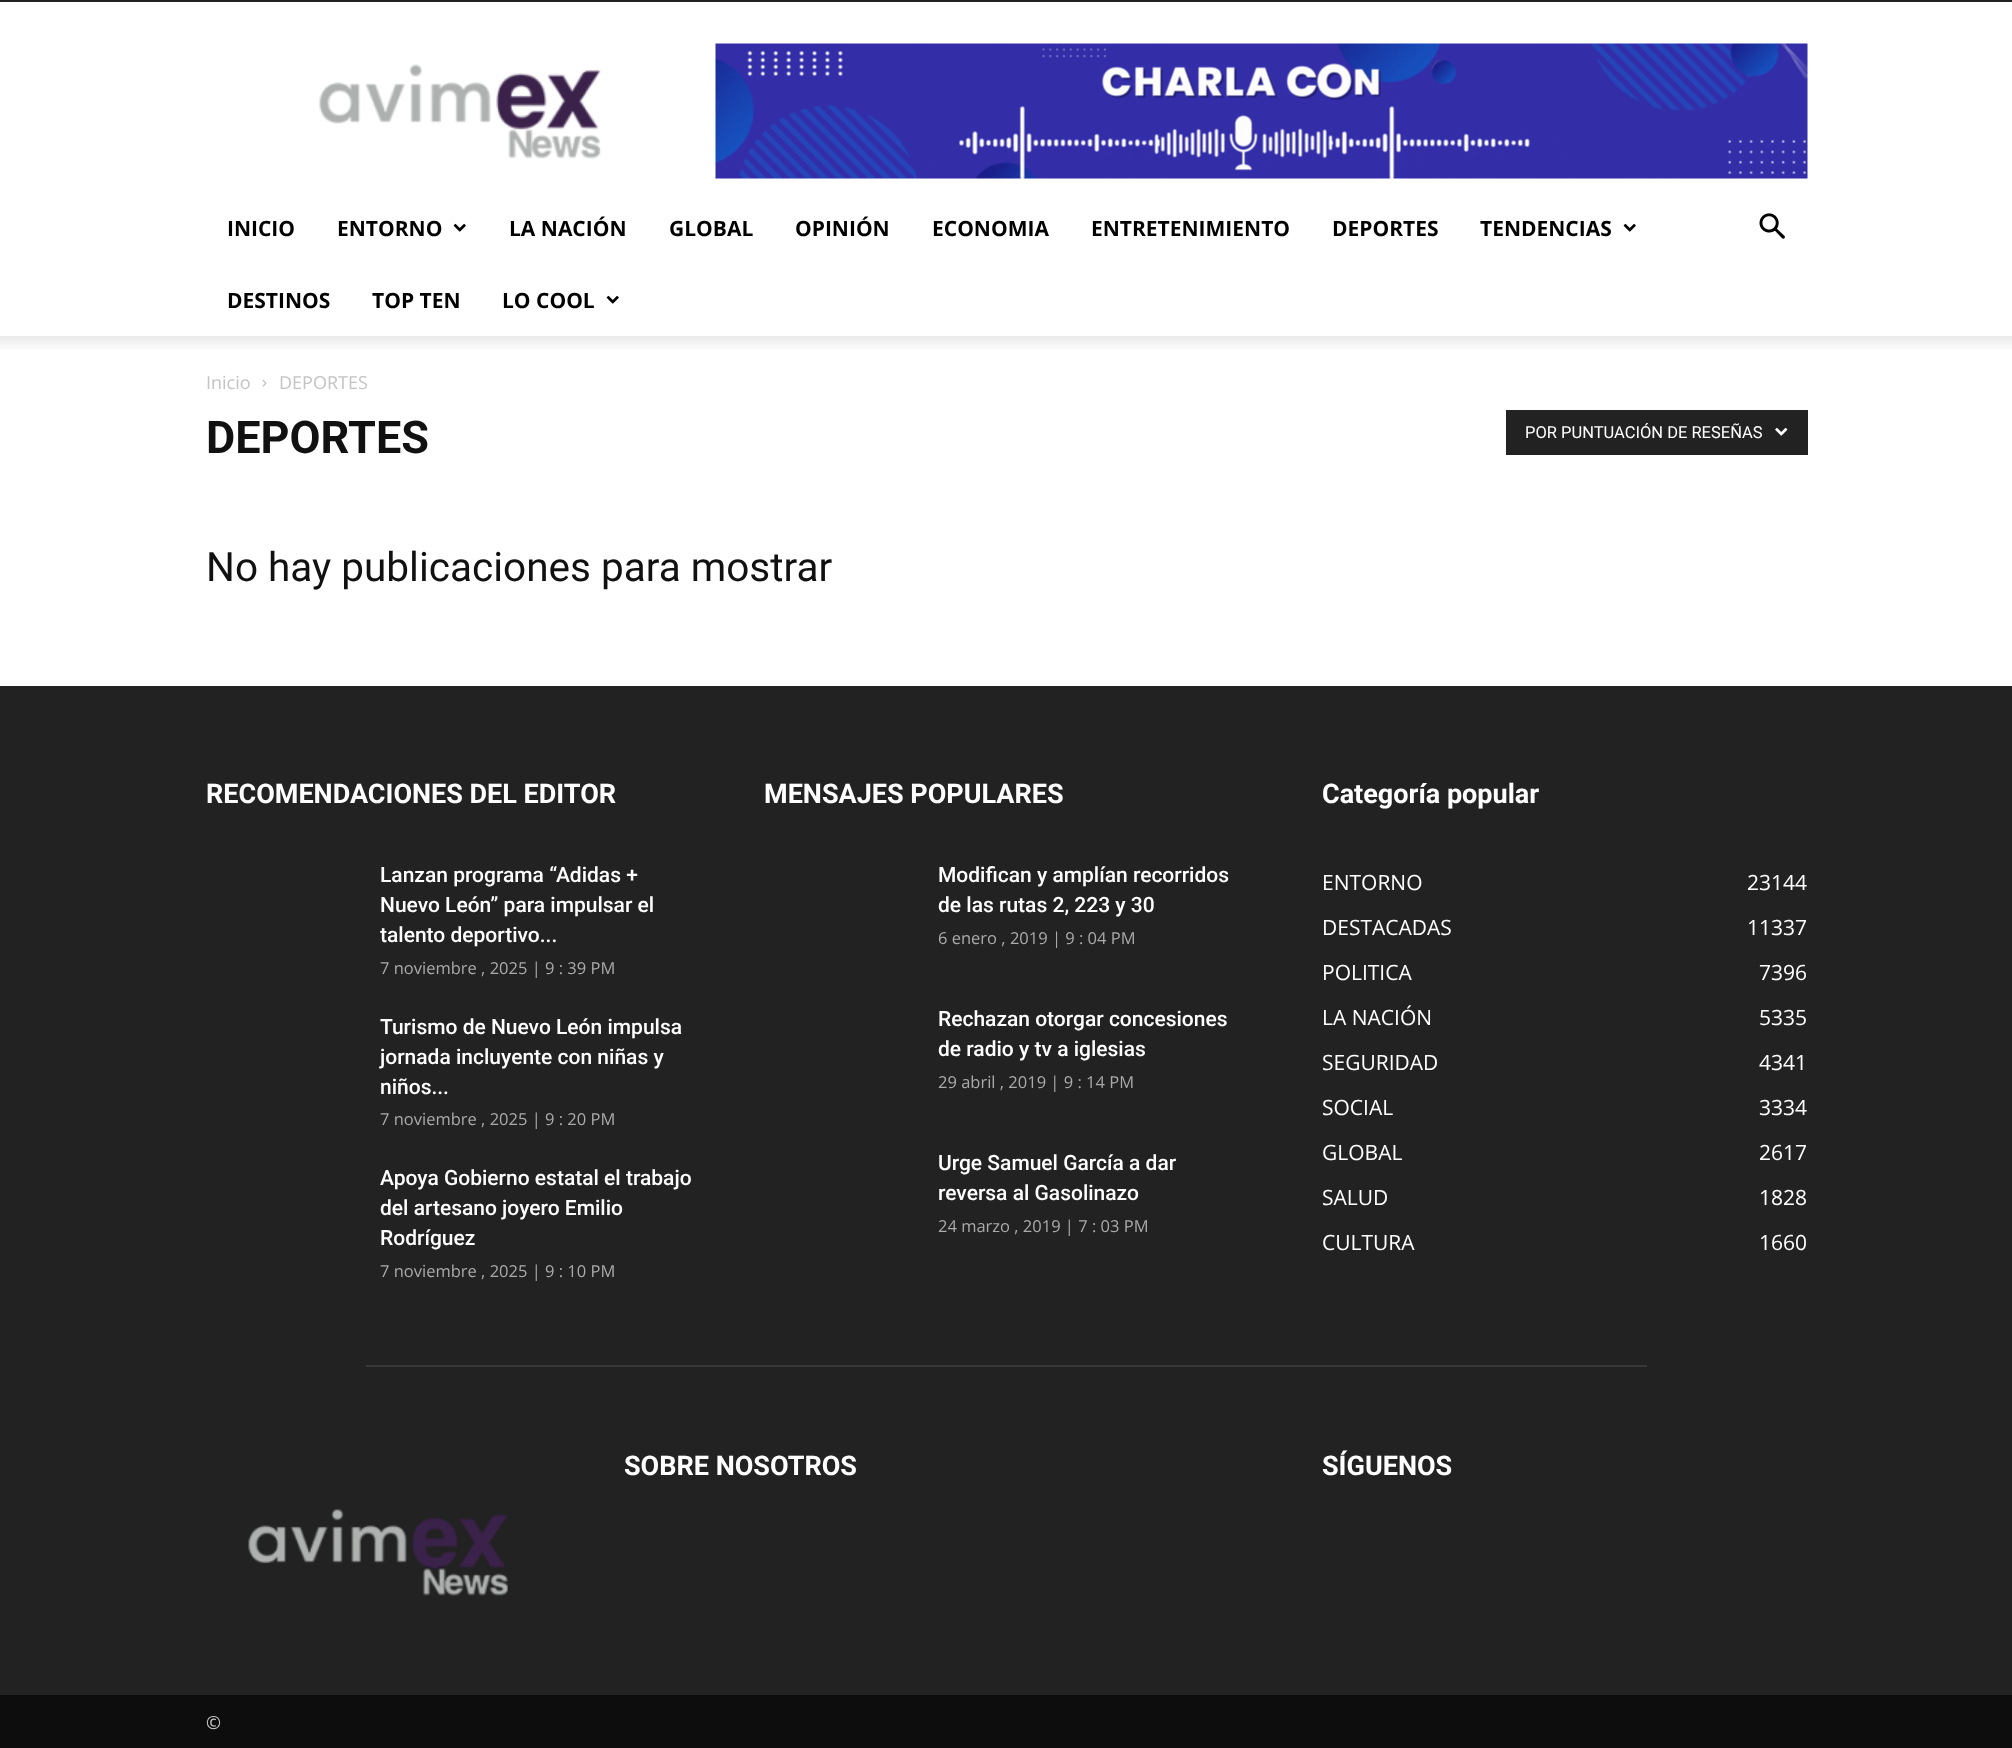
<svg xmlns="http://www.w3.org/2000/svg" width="2012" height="1748">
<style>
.a{font:bold 21px Open Sans;fill:#000}
.b{font:18px Open Sans;fill:#c3c3c3}
.c{font:bold 45px Roboto;fill:#111}
.d{font:16.5px Roboto;fill:#fff}
.e{font:40.5px Roboto;fill:#111}
.f{font:bold 27px Roboto;fill:#fff}
.g{font:500 21px Roboto;fill:#fff}
.h{font:16.5px Open Sans;fill:#aaa}
.i{font:21px Open Sans;fill:#fff}
.j{font:18px Open Sans;fill:#ccc}
</style>
<rect width="100%" height="100%" fill="#fff"/>
<path fill="#222" d="M0 0h2012v2H0z"/>
<image href="1.png" x="319" y="64" width="282" height="95"/>
<image href="2.png" x="715" y="43" width="1093" height="136"/>
<image href="3.png" x="453" y="223" width="13" height="9"/>
<image href="3.png" x="1623" y="223" width="13" height="9"/>
<image href="3.png" x="606" y="295" width="13" height="9"/>
<image href="4.png" x="1759" y="213" width="26" height="26"/>
<image href="5.png" x="0" y="336" width="2012" height="13"/>
<image href="6.png" x="262" y="379" width="5" height="8"/>
<path fill="#222" d="M1506 410h302v45H1506z"/>
<image href="7.png" x="1775" y="427" width="13" height="9"/>
<path fill="#222" d="M0 686h2012v1009H0z"/>
<path fill="#383838" d="M366 1365h1281v2H366z"/>
<image href="8.png" x="248" y="1509" width="260" height="87"/>
<path fill="#0d0d0d" d="M0 1695h2012v53H0z"/>
<text class="a" x="227" y="236">INICIO</text>
<text class="a" x="337" y="236">ENTORNO</text>
<text class="a" x="509" y="236">LA NACIÓN</text>
<text class="a" x="669" y="236">GLOBAL</text>
<text class="a" x="795" y="236">OPINIÓN</text>
<text class="a" x="932" y="236">ECONOMIA</text>
<text class="a" x="1091" y="236">ENTRETENIMIENTO</text>
<text class="a" x="1332" y="236">DEPORTES</text>
<text class="a" x="1480" y="236">TENDENCIAS</text>
<text class="a" x="227" y="308">DESTINOS</text>
<text class="a" x="372" y="308">TOP TEN</text>
<text class="a" x="502" y="308">LO COOL</text>
<text class="b" x="206" y="389">Inicio</text>
<text class="b" x="279" y="389">DEPORTES</text>
<text class="c" x="206" y="453">DEPORTES</text>
<text class="d" x="1525" y="438">POR PUNTUACIÓN DE RESEÑAS</text>
<text class="e" x="206" y="581">No hay publicaciones para mostrar</text>
<text class="f" x="206" y="803">RECOMENDACIONES DEL EDITOR</text>
<text class="g" x="380" y="882">Lanzan programa “Adidas +</text>
<text class="g" x="380" y="912">Nuevo León” para impulsar el</text>
<text class="g" x="380" y="942">talento deportivo...</text>
<text class="h" x="380" y="974">7 noviembre , 2025 | 9 : 39 PM</text>
<text class="g" x="380" y="1034">Turismo de Nuevo León impulsa</text>
<text class="g" x="380" y="1064">jornada incluyente con niñas y</text>
<text class="g" x="380" y="1094">niños...</text>
<text class="h" x="380" y="1125">7 noviembre , 2025 | 9 : 20 PM</text>
<text class="g" x="380" y="1185">Apoya Gobierno estatal el trabajo</text>
<text class="g" x="380" y="1215">del artesano joyero Emilio</text>
<text class="g" x="380" y="1245">Rodríguez</text>
<text class="h" x="380" y="1277">7 noviembre , 2025 | 9 : 10 PM</text>
<text class="f" x="764" y="803">MENSAJES POPULARES</text>
<text class="g" x="938" y="882">Modifican y amplían recorridos</text>
<text class="g" x="938" y="912">de las rutas 2, 223 y 30</text>
<text class="h" x="938" y="944">6 enero , 2019 | 9 : 04 PM</text>
<text class="g" x="938" y="1026">Rechazan otorgar concesiones</text>
<text class="g" x="938" y="1056">de radio y tv a iglesias</text>
<text class="h" x="938" y="1088">29 abril , 2019 | 9 : 14 PM</text>
<text class="g" x="938" y="1170">Urge Samuel García a dar</text>
<text class="g" x="938" y="1200">reversa al Gasolinazo</text>
<text class="h" x="938" y="1232">24 marzo , 2019 | 7 : 03 PM</text>
<text class="f" x="1322" y="803">Categoría popular</text>
<text class="i" x="1322" y="890">ENTORNO</text>
<text class="i" x="1747" y="890">23144</text>
<text class="i" x="1322" y="935">DESTACADAS</text>
<text class="i" x="1747" y="935">11337</text>
<text class="i" x="1322" y="980">POLITICA</text>
<text class="i" x="1759" y="980">7396</text>
<text class="i" x="1322" y="1025">LA NACIÓN</text>
<text class="i" x="1759" y="1025">5335</text>
<text class="i" x="1322" y="1070">SEGURIDAD</text>
<text class="i" x="1759" y="1070">4341</text>
<text class="i" x="1322" y="1115">SOCIAL</text>
<text class="i" x="1759" y="1115">3334</text>
<text class="i" x="1322" y="1160">GLOBAL</text>
<text class="i" x="1759" y="1160">2617</text>
<text class="i" x="1322" y="1205">SALUD</text>
<text class="i" x="1759" y="1205">1828</text>
<text class="i" x="1322" y="1250">CULTURA</text>
<text class="i" x="1759" y="1250">1660</text>
<text class="f" x="624" y="1475">SOBRE NOSOTROS</text>
<text class="f" x="1322" y="1475">SÍGUENOS</text>
<text class="j" x="206" y="1729">©</text>
</svg>
